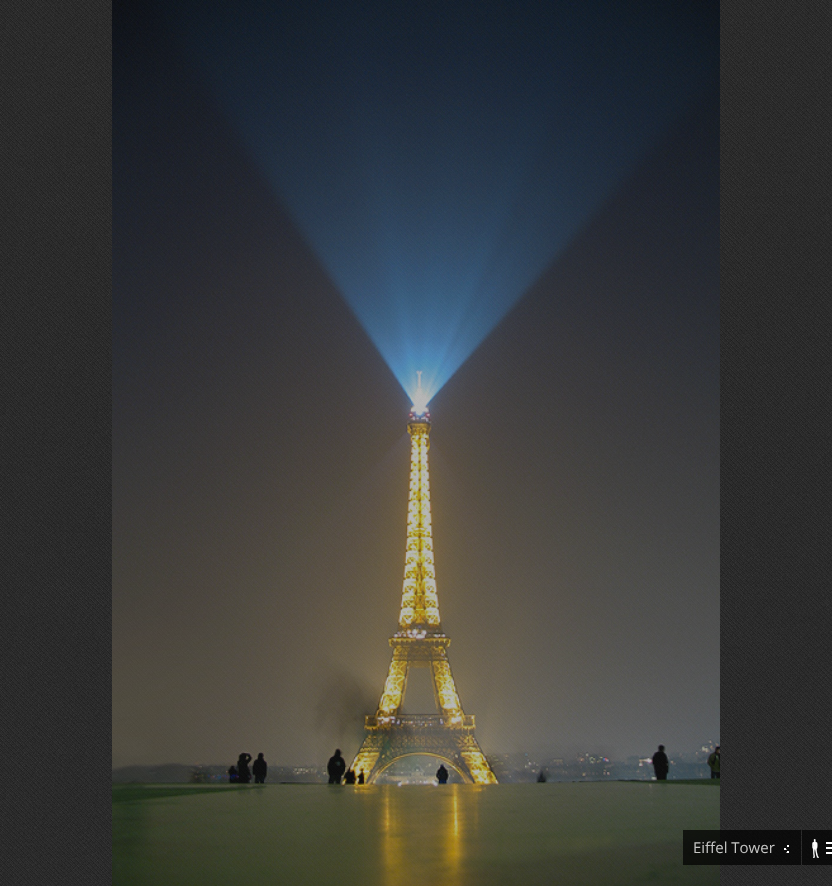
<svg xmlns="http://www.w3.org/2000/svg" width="832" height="886">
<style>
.a{font:15px Open Sans;fill:#c6c6c5}
</style>
<rect width="100%" height="100%" fill="#fff"/>
<image href="1.png" x="0" y="0" width="832" height="886"/>
<image href="2.png" x="112" y="0" width="608" height="886"/>
<path fill="#000000b3" d="M683 830h118v35H683z"/>
<image href="3.png" x="784" y="845" width="5" height="8"/>
<path fill="#000000b3" d="M802 830h20v35H802z"/>
<path fill="#000000b3" d="M822 830h10v35H822z"/>
<image href="4.png" x="826" y="842" width="6" height="12"/>
<image href="5.png" x="812" y="839" width="7" height="19"/>
<text class="a" x="693" y="853">Eiffel Tower</text>
</svg>
